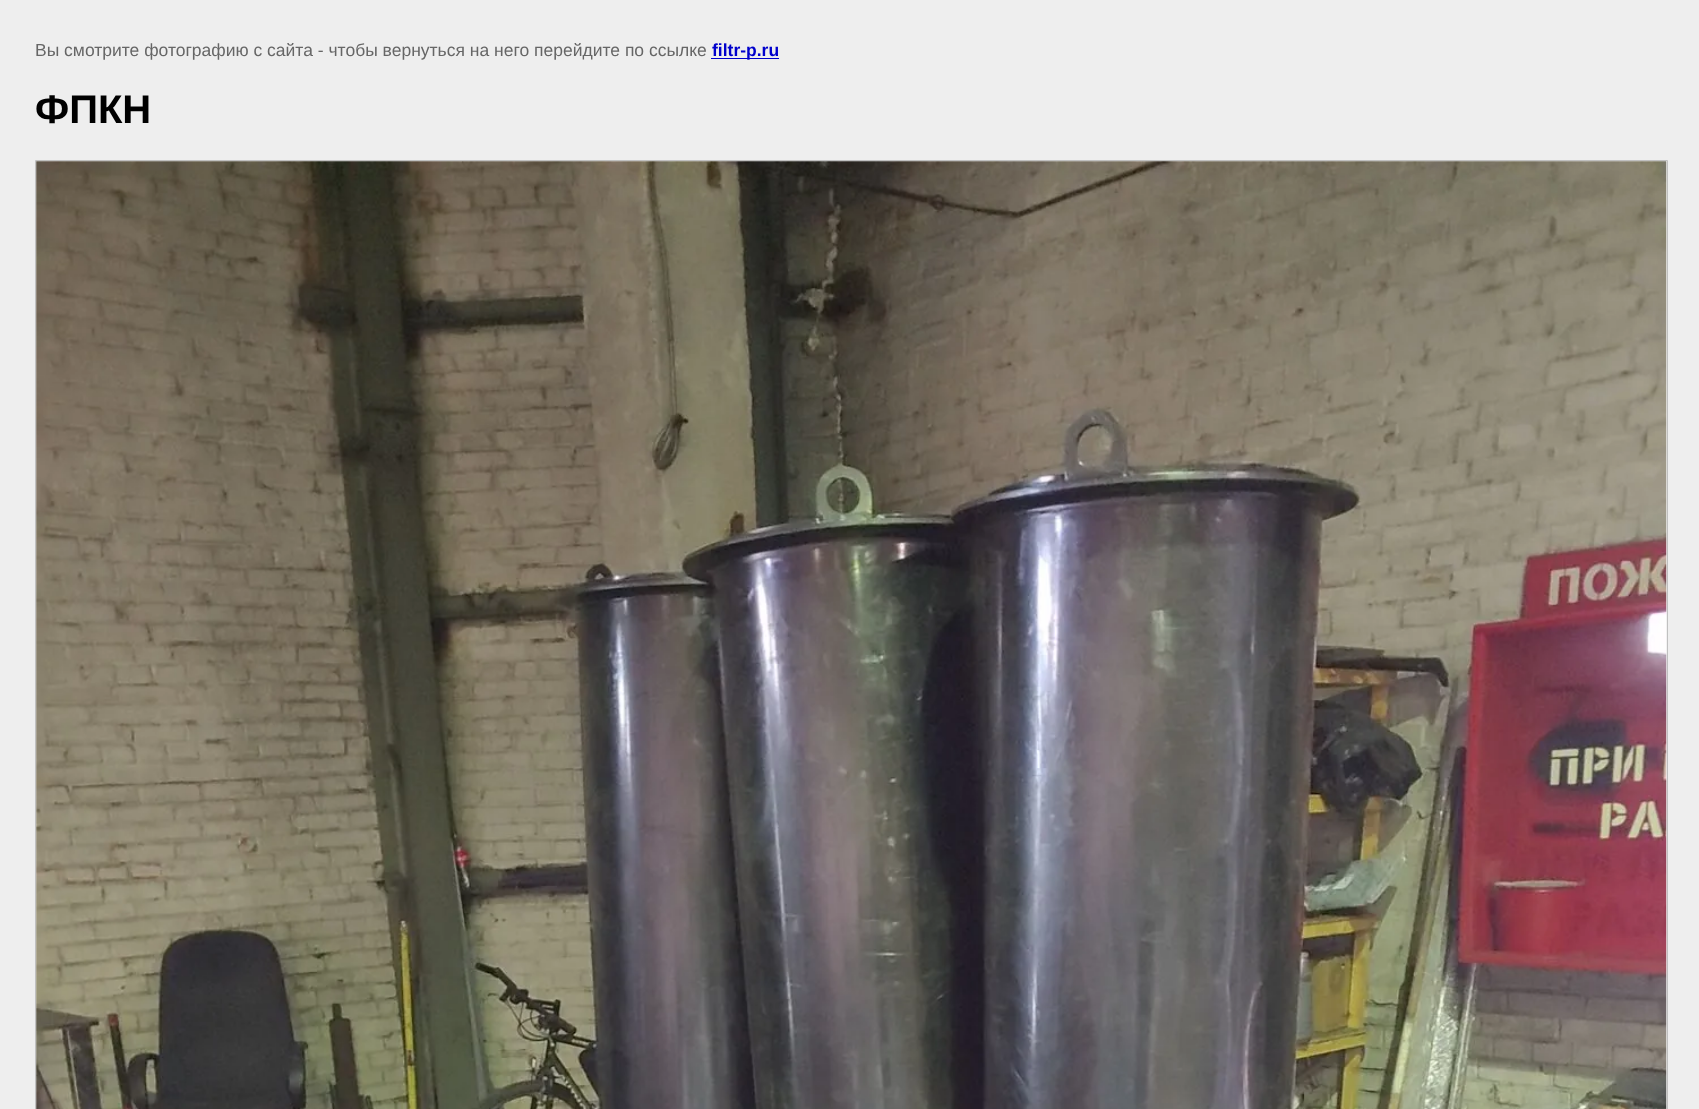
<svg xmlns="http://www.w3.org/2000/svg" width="1699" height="1109">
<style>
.a{font:17.5px Liberation Sans;fill:#666}
.b{font:bold 17.5px Liberation Sans;fill:#00c}
.c{font:bold 40px Liberation Sans;fill:#000}
</style>
<rect width="100%" height="100%" fill="#eee"/>
<path fill="#00c" d="M711 58h68v1H711z"/>
<path fill="none" stroke="#c0c0c0" d="M35.5 160.5h1632v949H35.5z"/>
<image href="1.png" x="36" y="161" width="1631" height="948"/>
<text class="a" x="35" y="56">Вы смотрите фотографию с сайта - чтобы вернуться на него перейдите по ссылке</text>
<text class="b" x="712" y="56">filtr-p.ru</text>
<text class="c" x="35" y="123">ФПКН</text>
</svg>
